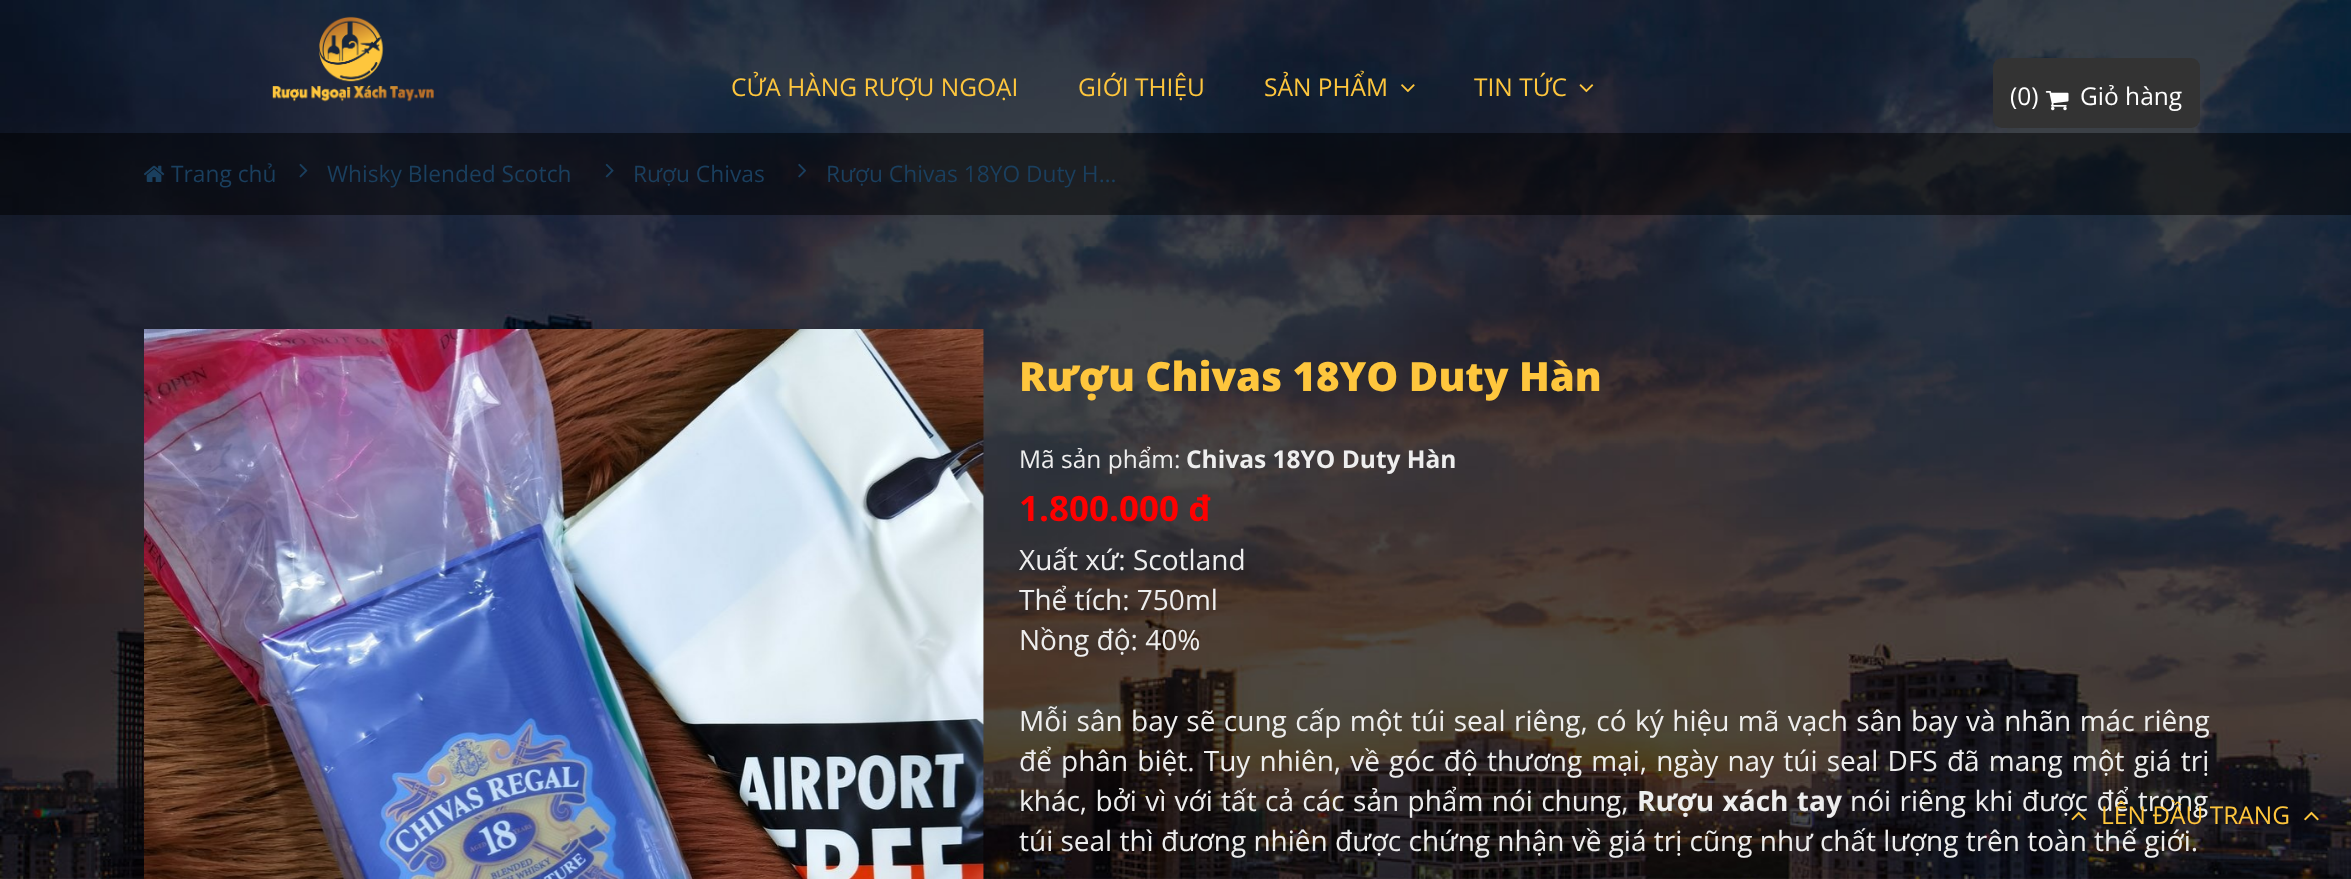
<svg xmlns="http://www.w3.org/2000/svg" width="2351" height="879">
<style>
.a{font:24.5px Open Sans;fill:#fec63d}
.b{font:24.5px Open Sans;fill:#fff}
.c{font:22.75px Open Sans;fill:#1a3f5e}
.d{font:800 40.25px Open Sans;fill:#fec63d}
.e{font:24.5px Open Sans;fill:#eee}
.f{font:bold 24.5px Open Sans;fill:#eee}
.g{font:bold 35px Open Sans;fill:#f00}
.h{font:28px Open Sans;fill:#eee}
.i{font:bold 28px Open Sans;fill:#eee}
</style>
<rect width="100%" height="100%" fill="#fff"/>
<image href="1.png" x="0" y="0" width="2351" height="879"/>
<image href="2.png" x="272" y="16" width="162" height="86"/>
<image href="3.png" x="1401" y="84" width="14" height="9"/>
<image href="4.png" x="1579" y="84" width="15" height="9"/>
<rect fill="#333" x="1993" y="58" width="207" height="70" rx="9"/>
<image href="5.png" x="2045" y="91" width="24" height="20"/>
<path fill="#00000080" d="M0 133h2351v82H0z"/>
<image href="6.png" x="144" y="165" width="21" height="17"/>
<image href="7.png" x="299" y="163" width="9" height="15"/>
<image href="8.png" x="605" y="163" width="9" height="15"/>
<image href="9.png" x="798" y="163" width="8" height="15"/>
<image href="10.png" x="144" y="329" width="840" height="550"/>
<image href="12.png" x="2304" y="811" width="15" height="10"/>
<text class="a" x="731" y="96">CỬA HÀNG RƯỢU NGOẠI</text>
<text class="a" x="1078" y="96">GIỚI THIỆU</text>
<text class="a" x="1264" y="96">SẢN PHẨM</text>
<text class="a" x="1474" y="96">TIN TỨC</text>
<text class="b" x="2010" y="105">(0)</text>
<text class="b" x="2080" y="105">Giỏ hàng</text>
<text class="c" x="171" y="182">Trang chủ</text>
<text class="c" x="327" y="182">Whisky Blended Scotch</text>
<text class="c" x="633" y="182">Rượu Chivas</text>
<text class="c" x="826" y="182">Rượu Chivas 18YO Duty H…</text>
<text class="d" x="1019" y="391">Rượu Chivas 18YO Duty Hàn</text>
<text class="e" x="1019" y="468">Mã sản phẩm:</text>
<text class="f" x="1186" y="468">Chivas 18YO Duty Hàn</text>
<text class="g" x="1019" y="521">1.800.000 đ</text>
<text class="h" x="1019" y="570">Xuất xứ: Scotland</text>
<text class="h" x="1019" y="610">Thể tích: 750ml</text>
<text class="h" x="1019" y="650">Nồng độ: 40%</text>
<text class="h" x="1019" y="731" word-spacing="1.2">Mỗi sân bay sẽ cung cấp một túi seal riêng, có ký hiệu mã vạch sân bay và nhãn mác riêng</text>
<text class="h" x="1019" y="771" word-spacing="1.9">để phân biệt. Tuy nhiên, về góc độ thương mại, ngày nay túi seal DFS đã mang một giá trị</text>
<text class="h" x="1019" y="811" word-spacing="1.1">khác, bởi vì với tất cả các sản phẩm nói chung,</text>
<text class="i" x="1637" y="811" word-spacing="1.1">Rượu xách tay</text>
<text class="h" x="1850" y="811" word-spacing="1.1">nói riêng khi được để trong</text>
<text class="h" x="1019" y="851">túi seal thì đương nhiên được chứng nhận về giá trị cũng như chất lượng trên toàn thế giới.</text>
<image href="11.png" x="2071" y="811" width="15" height="10"/>
<text class="a" x="2101" y="824">LÊN ĐẦU TRANG</text>
</svg>
